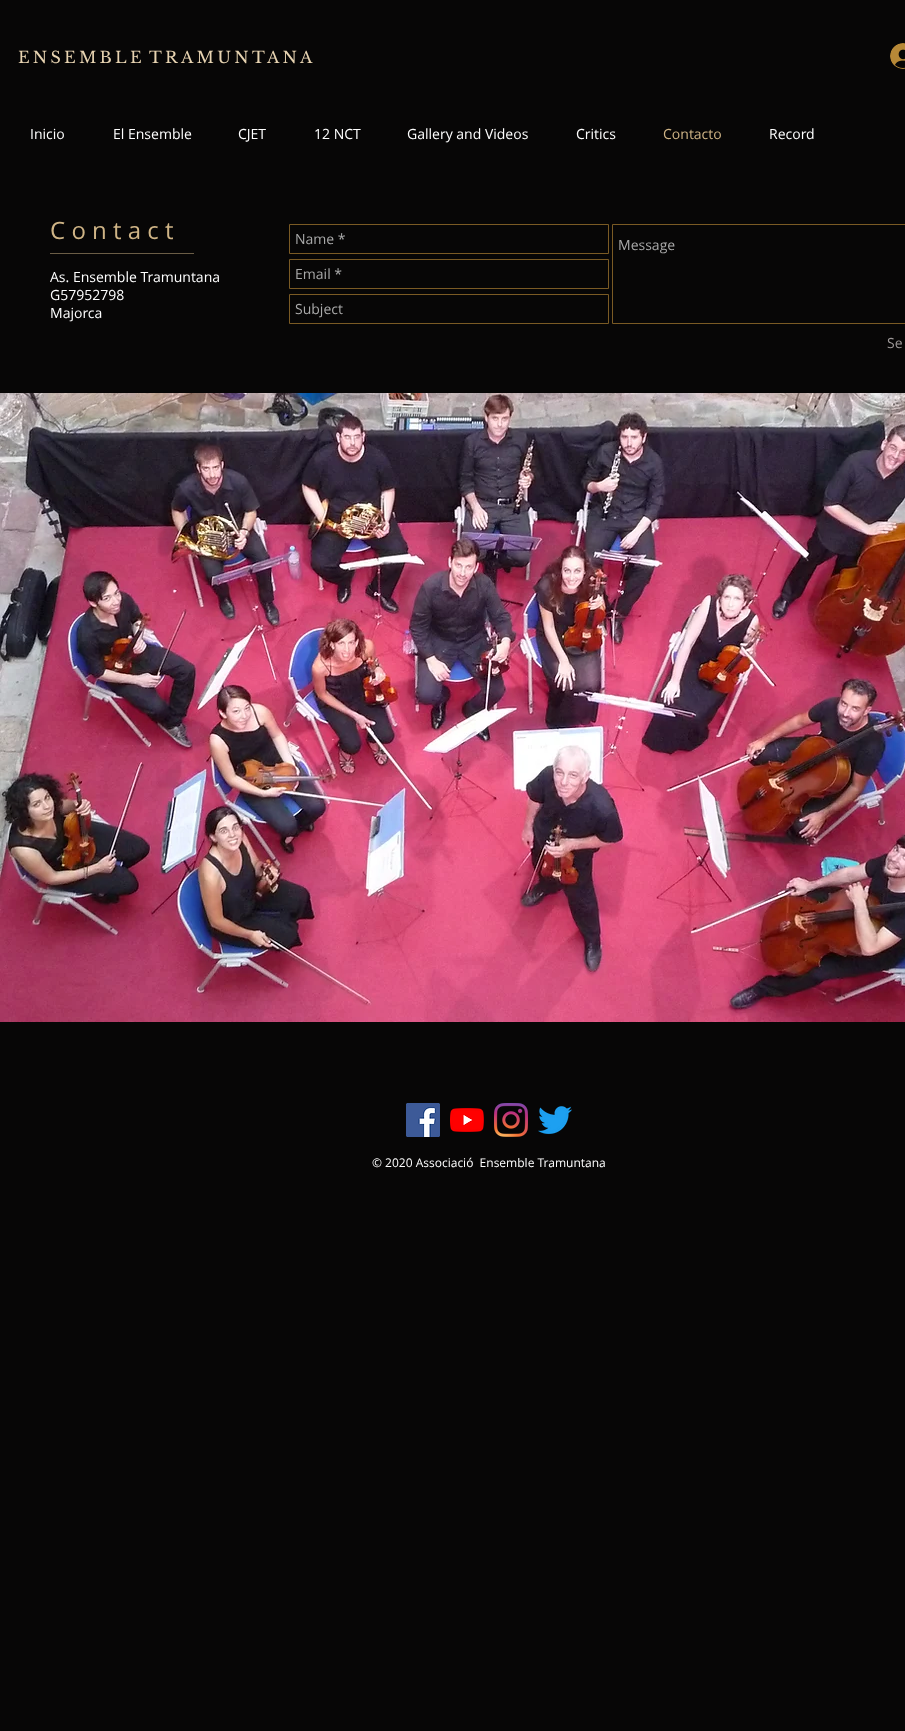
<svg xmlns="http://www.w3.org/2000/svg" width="905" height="1731">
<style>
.a{font:16px Libre Baskerville;letter-spacing:3.25px;fill:#e7d3b1}
.b{font:14px Open Sans;fill:#fff}
.c{font:14px Open Sans;fill:#cfb486}
.d{font:24px Open Sans;fill:#cfb486}
.e{font:14px Open Sans;fill:#a9a9a9}
.f{font:14px Open Sans;fill:#9c9797}
.g{font:12px Open Sans;fill:#fff}
</style>
<rect width="100%" height="100%" fill="#070606"/>
<image href="1.png" x="890" y="43" width="15" height="26"/>
<path fill="#6b5d46" d="M50 253h144v1H50z"/>
<path fill="none" stroke="#7a5a24" d="M289.5 224.5h319v29H289.5z"/>
<path fill="none" stroke="#7a5a24" d="M612.5 224.5h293v99H612.5z"/>
<path fill="none" stroke="#7a5a24" d="M289.5 259.5h319v29H289.5z"/>
<path fill="none" stroke="#7a5a24" d="M289.5 294.5h319v29H289.5z"/>
<image href="2.png" x="0" y="393" width="905" height="629"/>
<image href="3.png" x="406" y="1103" width="34" height="34"/>
<image href="4.png" x="450" y="1108" width="34" height="24"/>
<image href="5.png" x="494" y="1103" width="34" height="34"/>
<image href="6.png" x="538" y="1106" width="34" height="29"/>
<text class="a" x="18" y="63">ENSEMBLE</text>
<text class="a" x="149" y="63">TRAMUNTANA</text>
<text class="b" x="30" y="139">Inicio</text>
<text class="b" x="113" y="139">El Ensemble</text>
<text class="b" x="238" y="139">CJET</text>
<text class="b" x="314" y="139">12 NCT</text>
<text class="b" x="407" y="139">Gallery and Videos</text>
<text class="b" x="576" y="139">Critics</text>
<text class="c" x="663" y="139">Contacto</text>
<text class="b" x="769" y="139">Record</text>
<text class="d" x="50" y="239">C o n t a c t</text>
<text class="e" x="295" y="244">Name *</text>
<text class="e" x="618" y="250">Message</text>
<text class="e" x="295" y="279">Email *</text>
<text class="e" x="295" y="314">Subject</text>
<text class="f" x="887" y="348">Se</text>
<text class="b" x="50" y="282">As. Ensemble Tramuntana</text>
<text class="b" x="50" y="300">G57952798</text>
<text class="b" x="50" y="318">Majorca</text>
<text class="g" xml:space="preserve" x="372" y="1167">© 2020 Associació  Ensemble Tramuntana</text>
</svg>
